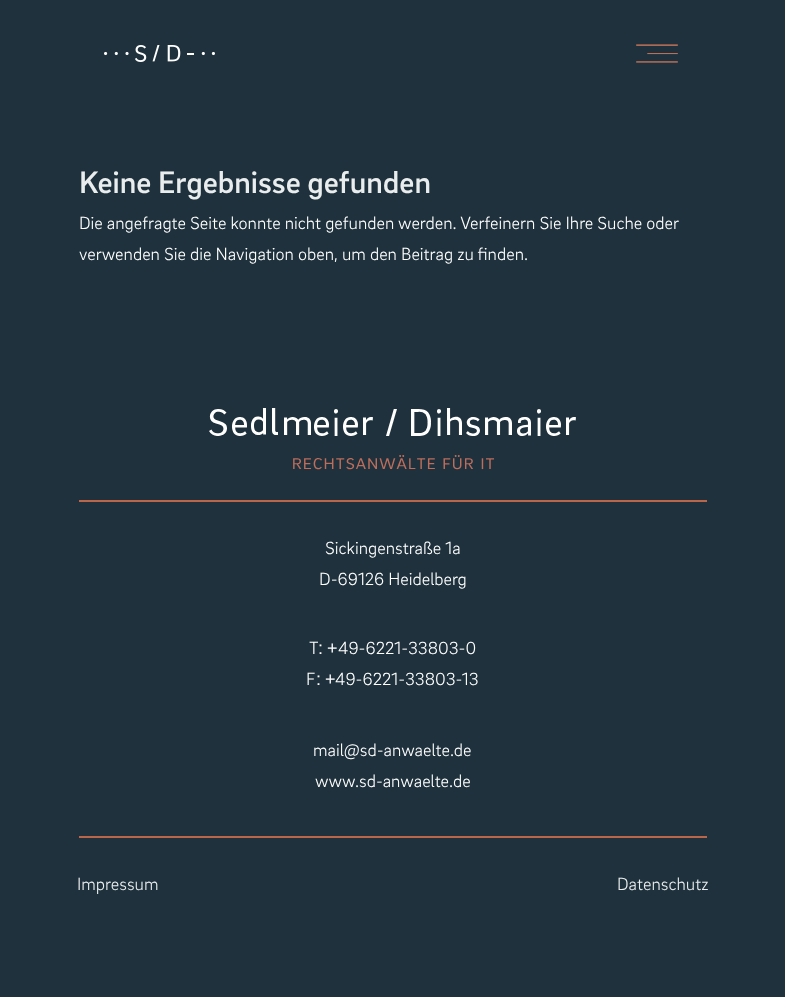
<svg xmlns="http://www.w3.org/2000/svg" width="785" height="997">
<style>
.a{font:500 32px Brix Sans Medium;fill:#eaedee}
.b{font:300 18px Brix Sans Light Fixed;fill:#fff}
.c{font:300 18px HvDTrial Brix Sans;fill:#fff}
.d{font:18px Liberation Sans;fill:#fff}
.e{font:300 18px Brix Sans Light Fixed;fill:#eaedee}
</style>
<rect width="100%" height="100%" fill="#1e313c"/>
<image href="1.png" x="104" y="45" width="111" height="17"/>
<image href="2.png" x="636" y="44" width="42" height="19"/>
<image href="3.png" x="209" y="408" width="367" height="62"/>
<path fill="#bb664b" d="M79 500h628v2H79z"/>
<path fill="#bb664b" d="M79 836h628v2H79z"/>
<text class="a" x="79" y="193">Keine Ergebnisse gefunden</text>
<text class="b" x="79" y="229">Die angefragte Seite konnte nicht gefunden werden. Verfeinern Sie Ihre Suche oder</text>
<text class="b" x="79" y="260">verwenden Sie die Navigation oben, um den Beitrag zu finden.</text>
<text class="b" x="325" y="554">Sickingenstraße 1a</text>
<text class="b" x="319" y="585">D-69126 Heidelberg</text>
<text class="c" x="309" y="654">T</text>
<text class="d" x="318" y="654" word-spacing="-1">: +</text>
<text class="c" x="338" y="654">49-6221-33803-0</text>
<text class="c" x="306" y="685">F</text>
<text class="d" x="316" y="685" word-spacing="-1">: +</text>
<text class="c" x="335" y="685">49-6221-33803-13</text>
<text class="b" x="313" y="756">mail@sd-anwaelte.de</text>
<text class="b" x="315" y="787">www.sd-anwaelte.de</text>
<text class="e" x="77" y="890">Impressum</text>
<text class="e" x="617" y="890">Datenschutz</text>
</svg>
